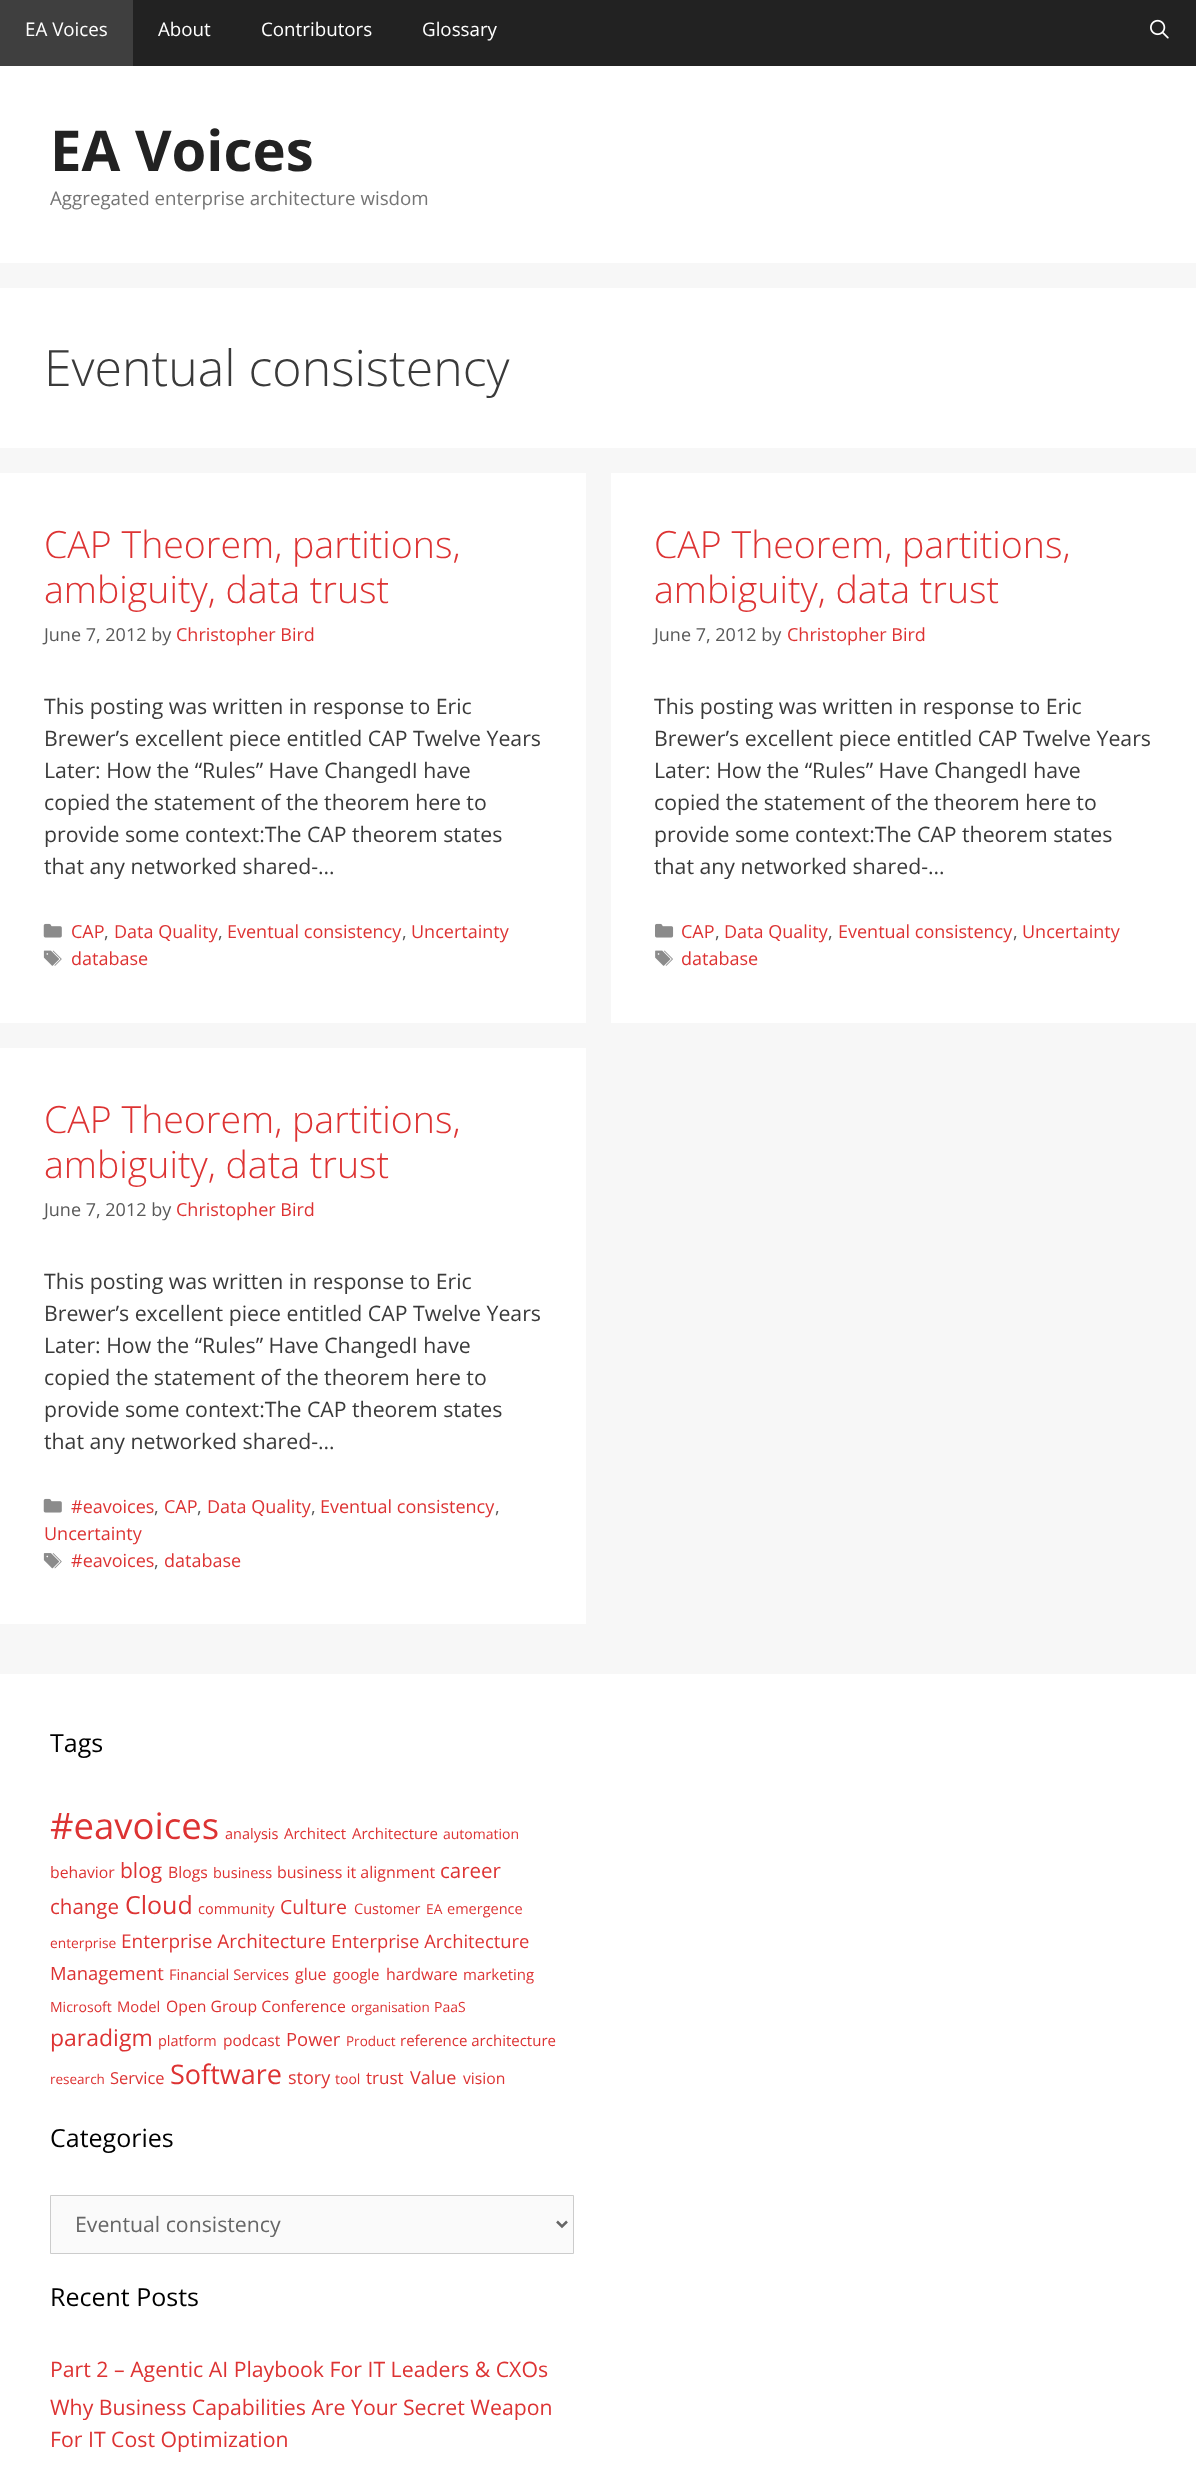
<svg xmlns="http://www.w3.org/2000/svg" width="1196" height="2468">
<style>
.a{font:18.75px Open Sans;fill:#fff}
.b{font:bold 56.25px Open Sans;fill:#222}
.c{font:18.75px Open Sans;fill:#757575}
.d{font:300 50px Open Sans;fill:#3a3a3a}
.e{font:300 37.5px Open Sans;fill:#d33}
.f{font:18px Open Sans;fill:#595959}
.g{font:18px Open Sans;fill:#d33}
.h{font:21.25px Open Sans;fill:#3a3a3a}
.i{font:25px Open Sans;fill:#000}
.j{font:36.5px Open Sans;fill:#d33}
.k{font:14.5px Open Sans;fill:#d33}
.l{font:15px Open Sans;fill:#d33}
.m{font:14px Open Sans;fill:#d33}
.n{font:15.75px Open Sans;fill:#d33}
.o{font:21px Open Sans;fill:#d33}
.p{font:16px Open Sans;fill:#d33}
.q{font:20.5px Open Sans;fill:#d33}
.r{font:25px Open Sans;fill:#d33}
.s{font:19.5px Open Sans;fill:#d33}
.t{font:13.75px Open Sans;fill:#d33}
.u{font:19px Open Sans;fill:#d33}
.v{font:18.4px Open Sans;fill:#d33}
.w{font:14.75px Open Sans;fill:#d33}
.x{font:13.5px Open Sans;fill:#d33}
.y{font:23px Open Sans;fill:#d33}
.z{font:15.5px Open Sans;fill:#d33}
.a1{font:16.5px Open Sans;fill:#d33}
.b1{font:27px Open Sans;fill:#d33}
.c1{font:17px Open Sans;fill:#d33}
.d1{font:21.25px Open Sans;fill:#666}
.e1{font:21.25px Open Sans;fill:#d33}
</style>
<rect width="100%" height="100%" fill="#f7f7f7"/>
<path fill="#222" d="M133 0h1063v66H133z"/>
<path fill="#3f3f3f" d="M0 0h133v66H0z"/>
<image href="1.png" x="1150" y="19" width="19" height="20"/>
<path fill="#fff" d="M0 66h1196v197H0z"/>
<path fill="#fff" d="M0 288h1196v160H0z"/>
<path fill="#fff" d="M0 473h586v550H0z"/>
<image href="2.png" x="43" y="923" width="19" height="15"/>
<image href="3.png" x="43" y="950" width="19" height="16"/>
<path fill="#fff" d="M611 473h585v550H611z"/>
<image href="4.png" x="655" y="923" width="19" height="15"/>
<image href="5.png" x="655" y="950" width="18" height="16"/>
<path fill="#fff" d="M0 1048h586v576H0z"/>
<image href="2.png" x="43" y="1498" width="19" height="15"/>
<image href="6.png" x="43" y="1553" width="19" height="16"/>
<path fill="#fff" d="M0 1674h1196v794H0z"/>
<path fill="#fafafa" stroke="#ccc" d="M50.5 2195.5h523v58H50.5z"/>
<path fill="none" stroke="#666" stroke-width="2.5" d="M557 2221.5l5 5l5-5"/>
<text class="a" x="25" y="36">EA Voices</text>
<text class="a" x="158" y="36">About</text>
<text class="a" x="261" y="36">Contributors</text>
<text class="a" x="422" y="36">Glossary</text>
<text class="b" x="50" y="171">EA Voices</text>
<text class="c" x="50" y="205">Aggregated enterprise architecture wisdom</text>
<text class="d" x="44" y="386">Eventual consistency</text>
<text class="e" x="44" y="558">CAP Theorem, partitions,</text>
<text class="e" x="44" y="603">ambiguity, data trust</text>
<text class="f" x="44" y="641">June 7, 2012 by</text>
<text class="g" x="176" y="641">Christopher Bird</text>
<text class="h" x="44" y="714">This posting was written in response to Eric</text>
<text class="h" x="44" y="746">Brewer’s excellent piece entitled CAP Twelve Years</text>
<text class="h" x="44" y="778">Later: How the “Rules” Have ChangedI have</text>
<text class="h" x="44" y="810">copied the statement of the theorem here to</text>
<text class="h" x="44" y="842">provide some context:The CAP theorem states</text>
<text class="h" x="44" y="874">that any networked shared-…</text>
<text class="g" x="71" y="938">CAP</text>
<text class="f" x="104" y="938">,</text>
<text class="g" x="114" y="938">Data Quality</text>
<text class="f" x="218" y="938">,</text>
<text class="g" x="227" y="938">Eventual consistency</text>
<text class="f" x="402" y="938">,</text>
<text class="g" x="411" y="938">Uncertainty</text>
<text class="g" x="71" y="965">database</text>
<text class="e" x="654" y="558">CAP Theorem, partitions,</text>
<text class="e" x="654" y="603">ambiguity, data trust</text>
<text class="f" x="654" y="641">June 7, 2012 by</text>
<text class="g" x="787" y="641">Christopher Bird</text>
<text class="h" x="654" y="714">This posting was written in response to Eric</text>
<text class="h" x="654" y="746">Brewer’s excellent piece entitled CAP Twelve Years</text>
<text class="h" x="654" y="778">Later: How the “Rules” Have ChangedI have</text>
<text class="h" x="654" y="810">copied the statement of the theorem here to</text>
<text class="h" x="654" y="842">provide some context:The CAP theorem states</text>
<text class="h" x="654" y="874">that any networked shared-…</text>
<text class="g" x="681" y="938">CAP</text>
<text class="f" x="715" y="938">,</text>
<text class="g" x="724" y="938">Data Quality</text>
<text class="f" x="828" y="938">,</text>
<text class="g" x="838" y="938">Eventual consistency</text>
<text class="f" x="1013" y="938">,</text>
<text class="g" x="1022" y="938">Uncertainty</text>
<text class="g" x="681" y="965">database</text>
<text class="e" x="44" y="1133">CAP Theorem, partitions,</text>
<text class="e" x="44" y="1178">ambiguity, data trust</text>
<text class="f" x="44" y="1216">June 7, 2012 by</text>
<text class="g" x="176" y="1216">Christopher Bird</text>
<text class="h" x="44" y="1289">This posting was written in response to Eric</text>
<text class="h" x="44" y="1321">Brewer’s excellent piece entitled CAP Twelve Years</text>
<text class="h" x="44" y="1353">Later: How the “Rules” Have ChangedI have</text>
<text class="h" x="44" y="1385">copied the statement of the theorem here to</text>
<text class="h" x="44" y="1417">provide some context:The CAP theorem states</text>
<text class="h" x="44" y="1449">that any networked shared-…</text>
<text class="g" x="71" y="1513">#eavoices</text>
<text class="f" x="154" y="1513">,</text>
<text class="g" x="164" y="1513">CAP</text>
<text class="f" x="197" y="1513">,</text>
<text class="g" x="207" y="1513">Data Quality</text>
<text class="f" x="311" y="1513">,</text>
<text class="g" x="320" y="1513">Eventual consistency</text>
<text class="f" x="495" y="1513">,</text>
<text class="g" x="44" y="1540">Uncertainty</text>
<text class="g" x="71" y="1567">#eavoices</text>
<text class="f" x="154" y="1567">,</text>
<text class="g" x="164" y="1567">database</text>
<text class="i" x="50" y="1752">Tags</text>
<text class="j" x="50" y="1839">#eavoices</text>
<text class="k" x="225" y="1839">analysis</text>
<text class="l" x="284" y="1839">Architect</text>
<text class="l" x="352" y="1839">Architecture</text>
<text class="m" x="443" y="1839">automation</text>
<text class="n" x="50" y="1878">behavior</text>
<text class="o" x="120" y="1878">blog</text>
<text class="n" x="168" y="1878">Blogs</text>
<text class="k" x="213" y="1878">business</text>
<text class="p" x="277" y="1878">business it alignment</text>
<text class="q" x="440" y="1878">career</text>
<text class="q" x="50" y="1914">change</text>
<text class="r" x="125" y="1914">Cloud</text>
<text class="k" x="198" y="1914">community</text>
<text class="s" x="280" y="1914">Culture</text>
<text class="k" x="354" y="1914">Customer</text>
<text class="t" x="426" y="1914">EA</text>
<text class="k" x="447" y="1914">emergence</text>
<text class="t" x="50" y="1948">enterprise</text>
<text class="u" x="121" y="1948">Enterprise Architecture</text>
<text class="v" x="331" y="1948">Enterprise Architecture</text>
<text class="v" x="50" y="1980">Management</text>
<text class="w" x="169" y="1980">Financial Services</text>
<text class="p" x="295" y="1980">glue</text>
<text class="l" x="333" y="1980">google</text>
<text class="p" x="386" y="1980">hardware</text>
<text class="l" x="463" y="1980">marketing</text>
<text class="m" x="50" y="2012">Microsoft</text>
<text class="w" x="117" y="2012">Model</text>
<text class="n" x="166" y="2012">Open Group Conference</text>
<text class="x" x="351" y="2012">organisation</text>
<text class="m" x="434" y="2012">PaaS</text>
<text class="y" x="50" y="2046">paradigm</text>
<text class="k" x="158" y="2046">platform</text>
<text class="z" x="223" y="2046">podcast</text>
<text class="v" x="286" y="2046">Power</text>
<text class="x" x="346" y="2046">Product</text>
<text class="l" x="400" y="2046">reference architecture</text>
<text class="x" x="50" y="2084">research</text>
<text class="a1" x="110" y="2084">Service</text>
<text class="b1" x="170" y="2084">Software</text>
<text class="g" x="288" y="2084">story</text>
<text class="m" x="335" y="2084">tool</text>
<text class="c1" x="366" y="2084">trust</text>
<text class="g" x="410" y="2084">Value</text>
<text class="n" x="463" y="2084">vision</text>
<text class="i" x="50" y="2147">Categories</text>
<text class="d1" x="75" y="2232">Eventual consistency</text>
<text class="i" x="50" y="2306">Recent Posts</text>
<text class="e1" x="50" y="2377">Part 2 – Agentic AI Playbook For IT Leaders &amp; CXOs</text>
<text class="e1" x="50" y="2415">Why Business Capabilities Are Your Secret Weapon</text>
<text class="e1" x="50" y="2447">For IT Cost Optimization</text>
</svg>
